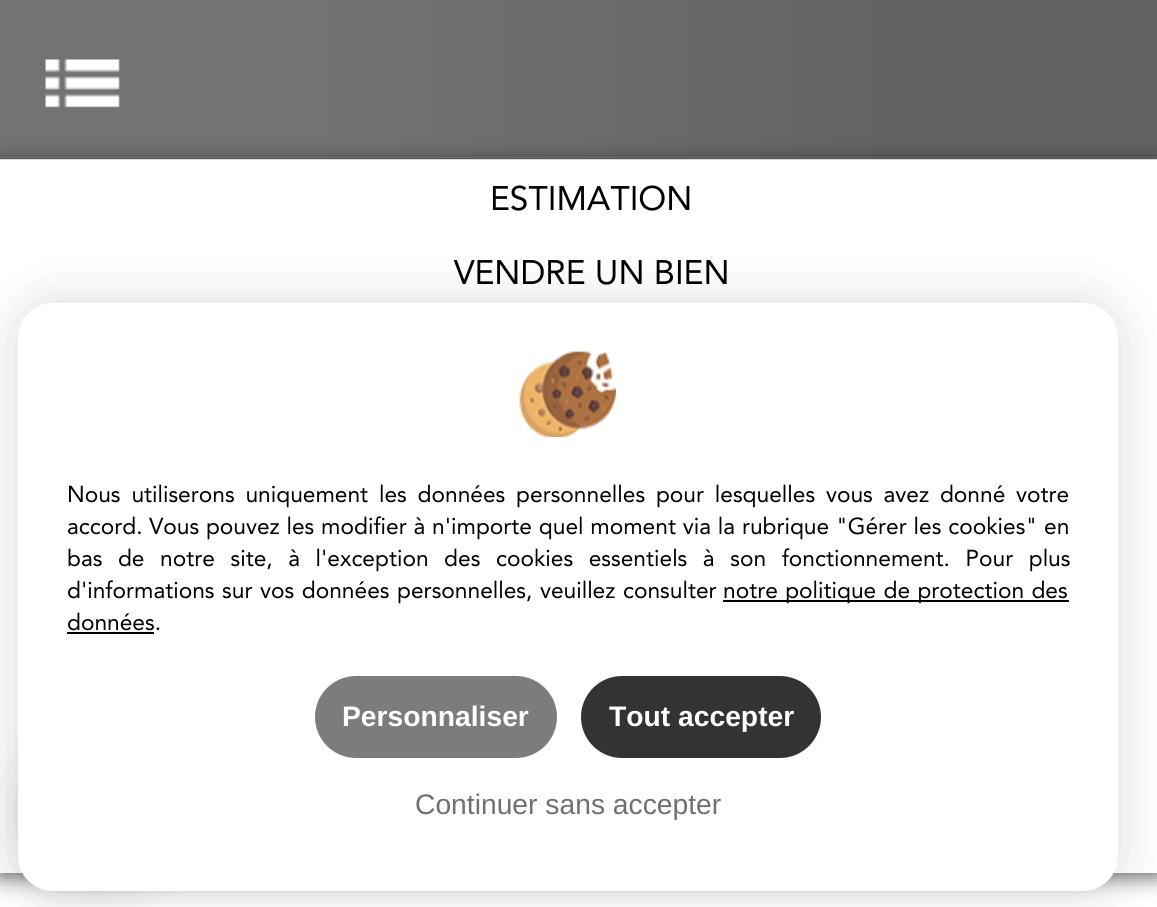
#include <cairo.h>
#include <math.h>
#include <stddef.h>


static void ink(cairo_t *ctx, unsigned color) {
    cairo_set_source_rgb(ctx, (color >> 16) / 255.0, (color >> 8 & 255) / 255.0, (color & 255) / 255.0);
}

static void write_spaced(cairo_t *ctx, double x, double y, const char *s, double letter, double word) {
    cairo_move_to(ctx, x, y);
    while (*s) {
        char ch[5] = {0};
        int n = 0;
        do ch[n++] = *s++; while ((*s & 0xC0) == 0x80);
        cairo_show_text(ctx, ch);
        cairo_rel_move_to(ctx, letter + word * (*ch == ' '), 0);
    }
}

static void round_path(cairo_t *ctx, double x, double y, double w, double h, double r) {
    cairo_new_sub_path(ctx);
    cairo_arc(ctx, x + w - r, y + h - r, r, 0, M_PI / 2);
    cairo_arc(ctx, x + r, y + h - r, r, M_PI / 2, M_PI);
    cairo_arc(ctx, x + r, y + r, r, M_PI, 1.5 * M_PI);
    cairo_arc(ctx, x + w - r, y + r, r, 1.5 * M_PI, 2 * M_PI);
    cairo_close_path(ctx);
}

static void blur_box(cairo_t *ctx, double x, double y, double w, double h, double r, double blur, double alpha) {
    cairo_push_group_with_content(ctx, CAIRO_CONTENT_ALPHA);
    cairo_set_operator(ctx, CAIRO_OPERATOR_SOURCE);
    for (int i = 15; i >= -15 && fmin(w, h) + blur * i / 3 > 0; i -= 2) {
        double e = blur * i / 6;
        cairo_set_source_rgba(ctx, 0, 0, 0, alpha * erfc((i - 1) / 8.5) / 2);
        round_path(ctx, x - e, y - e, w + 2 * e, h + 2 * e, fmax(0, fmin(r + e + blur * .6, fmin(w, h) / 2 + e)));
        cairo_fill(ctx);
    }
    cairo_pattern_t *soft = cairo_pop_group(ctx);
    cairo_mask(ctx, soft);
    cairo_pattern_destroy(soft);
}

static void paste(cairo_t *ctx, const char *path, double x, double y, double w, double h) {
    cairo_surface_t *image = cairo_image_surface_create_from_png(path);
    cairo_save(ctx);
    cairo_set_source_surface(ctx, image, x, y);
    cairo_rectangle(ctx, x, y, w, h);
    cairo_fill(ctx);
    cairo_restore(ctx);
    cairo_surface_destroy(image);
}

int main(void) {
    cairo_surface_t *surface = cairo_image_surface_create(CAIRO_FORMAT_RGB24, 1157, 907);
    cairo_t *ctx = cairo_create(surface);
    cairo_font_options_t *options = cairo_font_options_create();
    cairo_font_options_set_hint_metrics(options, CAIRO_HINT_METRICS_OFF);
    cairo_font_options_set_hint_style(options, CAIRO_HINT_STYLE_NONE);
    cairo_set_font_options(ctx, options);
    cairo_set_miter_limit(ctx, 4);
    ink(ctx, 0xFFFFFF);
    cairo_paint(ctx);
    paste(ctx, "media/2.png", 0, 0, 1157, 160);
    cairo_save(ctx);
    cairo_set_fill_rule(ctx, CAIRO_FILL_RULE_EVEN_ODD);
    cairo_new_path(ctx);
    cairo_move_to(ctx, 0, 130);
    cairo_line_to(ctx, 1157, 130);
    cairo_line_to(ctx, 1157, 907);
    cairo_line_to(ctx, 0, 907);
    cairo_close_path(ctx);
    cairo_move_to(ctx, 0, 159);
    cairo_line_to(ctx, 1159, 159);
    cairo_line_to(ctx, 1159, 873);
    cairo_line_to(ctx, 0, 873);
    cairo_close_path(ctx);
    cairo_clip(ctx);
    ink(ctx, 0x000000);
    blur_box(ctx, 0, 163, 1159, 714, 0, 10.5, 0.6);
    cairo_restore(ctx);
    paste(ctx, "media/1.png", 45, 59, 75, 49);
    cairo_select_font_face(ctx, "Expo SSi", CAIRO_FONT_SLANT_NORMAL, CAIRO_FONT_WEIGHT_NORMAL);
    cairo_set_font_size(ctx, 33.5);
    ink(ctx, 0x000000);
    cairo_move_to(ctx, 490, 210);
    cairo_show_text(ctx, "ESTIMATION");
    cairo_move_to(ctx, 454, 284);
    cairo_show_text(ctx, "VENDRE UN BIEN");
    ink(ctx, 0x000000);
    blur_box(ctx, 18, 303, 1100, 588, 35, 26, 0.15);
    blur_box(ctx, 26, 742, 140, 140, 70, 26, 0.15);
    ink(ctx, 0xFFFFFF);
    round_path(ctx, 18, 303, 1100, 588, 35);
    cairo_fill(ctx);
    paste(ctx, "media/3.png", 519, 351, 97, 86);
    cairo_set_font_size(ctx, 22.75);
    ink(ctx, 0x000000);
    write_spaced(ctx, 67, 502, "Nous utiliserons uniquement les données personnelles pour lesquelles vous avez donné votre", 0, 4.5);
    write_spaced(ctx, 67, 534, "accord. Vous pouvez les modifier à n'importe quel moment via la rubrique \"Gérer les cookies\" en", 0, 0.5);
    write_spaced(ctx, 67, 566, "bas de notre site, à l'exception des cookies essentiels à son fonctionnement. Pour plus", 0, 9.25);
    write_spaced(ctx, 67, 598, "d'informations sur vos données personnelles, veuillez consulter", 0, 1.25);
    cairo_rectangle(ctx, 723, 600, 346, 2);
    cairo_fill(ctx);
    write_spaced(ctx, 723, 598, "notre politique de protection des", 0, 1);
    cairo_move_to(ctx, 67, 630);
    cairo_show_text(ctx, "données.");
    cairo_rectangle(ctx, 67, 632, 87, 2);
    cairo_fill(ctx);
    ink(ctx, 0x7C7C7C);
    round_path(ctx, 316, 677, 240, 80, 40);
    cairo_fill_preserve(ctx);
    cairo_stroke(ctx);
    cairo_select_font_face(ctx, "Liberation Sans", CAIRO_FONT_SLANT_NORMAL, CAIRO_FONT_WEIGHT_BOLD);
    cairo_set_font_size(ctx, 28.25);
    ink(ctx, 0xFFFFFF);
    cairo_move_to(ctx, 342, 726);
    cairo_show_text(ctx, "Personnaliser");
    ink(ctx, 0x333333);
    round_path(ctx, 582, 677, 238, 80, 40);
    cairo_fill_preserve(ctx);
    cairo_stroke(ctx);
    ink(ctx, 0xFFFFFF);
    cairo_move_to(ctx, 609, 726);
    cairo_show_text(ctx, "Tout accepter");
    cairo_select_font_face(ctx, "Liberation Sans", CAIRO_FONT_SLANT_NORMAL, CAIRO_FONT_WEIGHT_NORMAL);
    ink(ctx, 0x707070);
    cairo_move_to(ctx, 415, 814);
    cairo_show_text(ctx, "Continuer sans accepter");
    cairo_surface_write_to_png(surface, "image.png");
    cairo_font_options_destroy(options);
    cairo_destroy(ctx);
    cairo_surface_destroy(surface);
    return 0;
}
